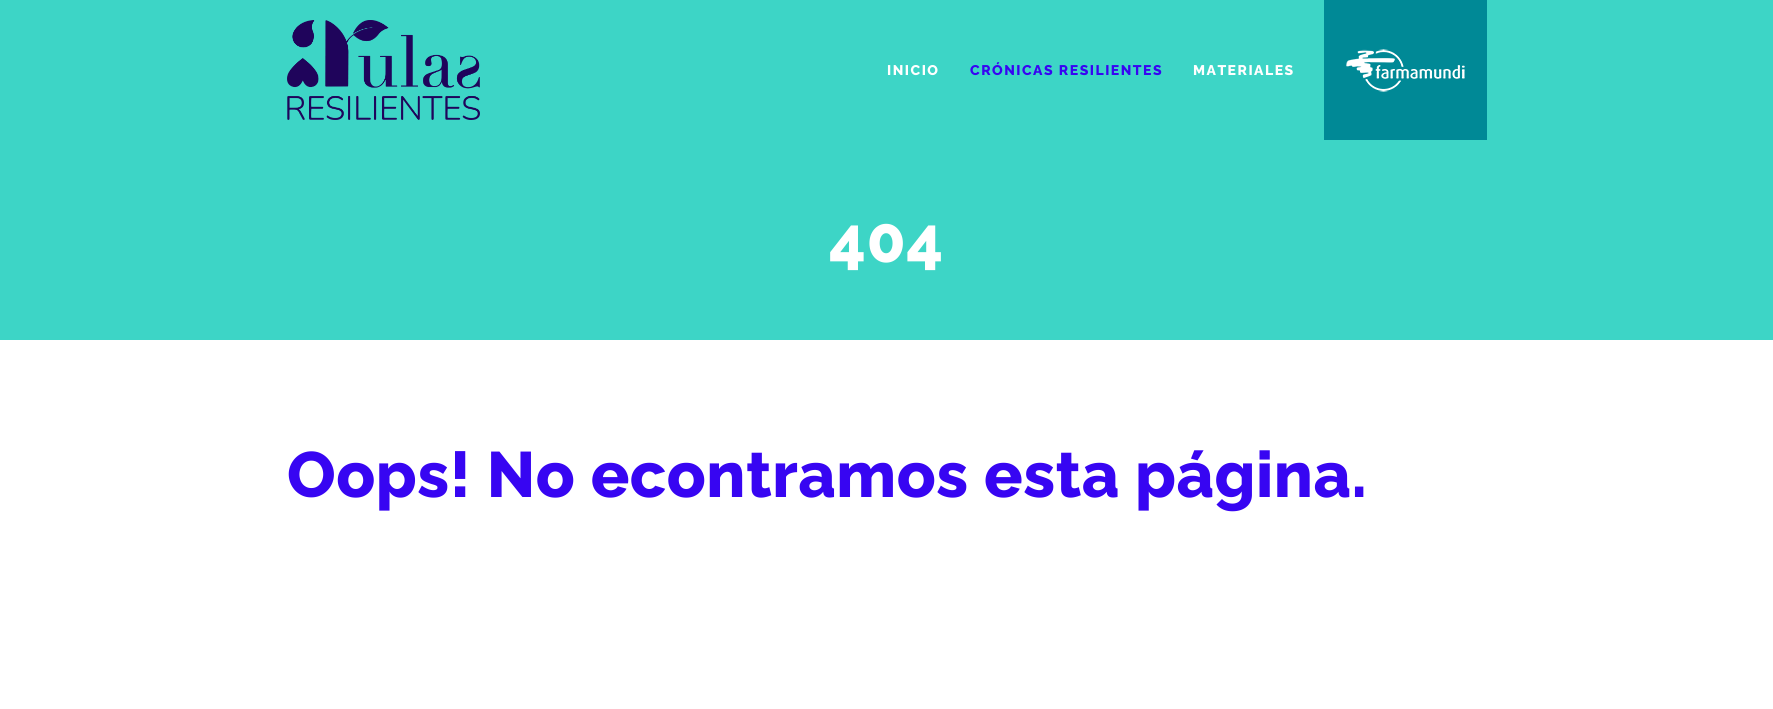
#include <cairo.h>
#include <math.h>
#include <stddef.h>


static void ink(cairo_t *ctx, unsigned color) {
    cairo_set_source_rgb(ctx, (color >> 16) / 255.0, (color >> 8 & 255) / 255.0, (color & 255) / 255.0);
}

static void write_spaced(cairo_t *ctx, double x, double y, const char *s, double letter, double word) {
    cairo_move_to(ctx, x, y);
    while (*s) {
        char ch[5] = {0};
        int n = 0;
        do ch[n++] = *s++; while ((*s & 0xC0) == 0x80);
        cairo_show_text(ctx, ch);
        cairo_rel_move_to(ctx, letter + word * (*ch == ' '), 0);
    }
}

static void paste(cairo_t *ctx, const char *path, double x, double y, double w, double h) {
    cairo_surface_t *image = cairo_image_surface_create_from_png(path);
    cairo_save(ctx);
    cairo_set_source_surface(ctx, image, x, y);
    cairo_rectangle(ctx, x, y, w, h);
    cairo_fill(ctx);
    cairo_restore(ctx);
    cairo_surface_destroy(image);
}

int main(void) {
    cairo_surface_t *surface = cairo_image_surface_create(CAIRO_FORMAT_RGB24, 1773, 709);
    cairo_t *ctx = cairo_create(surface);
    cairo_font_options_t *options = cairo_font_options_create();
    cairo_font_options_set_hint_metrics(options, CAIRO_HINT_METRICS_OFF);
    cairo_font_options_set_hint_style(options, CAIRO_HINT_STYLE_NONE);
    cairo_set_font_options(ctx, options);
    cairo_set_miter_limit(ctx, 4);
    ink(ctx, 0xFFFFFF);
    cairo_paint(ctx);
    ink(ctx, 0x3DD5C6);
    cairo_rectangle(ctx, 0, 0, 1773, 340);
    cairo_fill(ctx);
    paste(ctx, "media/1.png", 287, 20, 193, 100);
    cairo_select_font_face(ctx, "Raleway ExtraBold", CAIRO_FONT_SLANT_NORMAL, CAIRO_FONT_WEIGHT_NORMAL);
    cairo_set_font_size(ctx, 14);
    ink(ctx, 0xFFFFFF);
    write_spaced(ctx, 887, 75, "INICIO", 1.5, 0);
    ink(ctx, 0x3705F2);
    write_spaced(ctx, 970, 75, "CRÓNICAS RESILIENTES", 1.5, 0);
    ink(ctx, 0xFFFFFF);
    write_spaced(ctx, 1193, 75, "MATERIALES", 1.5, 0);
    ink(ctx, 0x008996);
    cairo_rectangle(ctx, 1324, 0, 163, 140);
    cairo_fill(ctx);
    paste(ctx, "media/2.png", 1346, 49, 119, 43);
    cairo_set_font_size(ctx, 64);
    ink(ctx, 0xFFFFFF);
    write_spaced(ctx, 829, 262, "404", 0.5, 0);
    ink(ctx, 0x3705F2);
    write_spaced(ctx, 287, 497, "Oops! No econtramos esta página.", 0.5, 0);
    cairo_surface_write_to_png(surface, "image.png");
    cairo_font_options_destroy(options);
    cairo_destroy(ctx);
    cairo_surface_destroy(surface);
    return 0;
}
